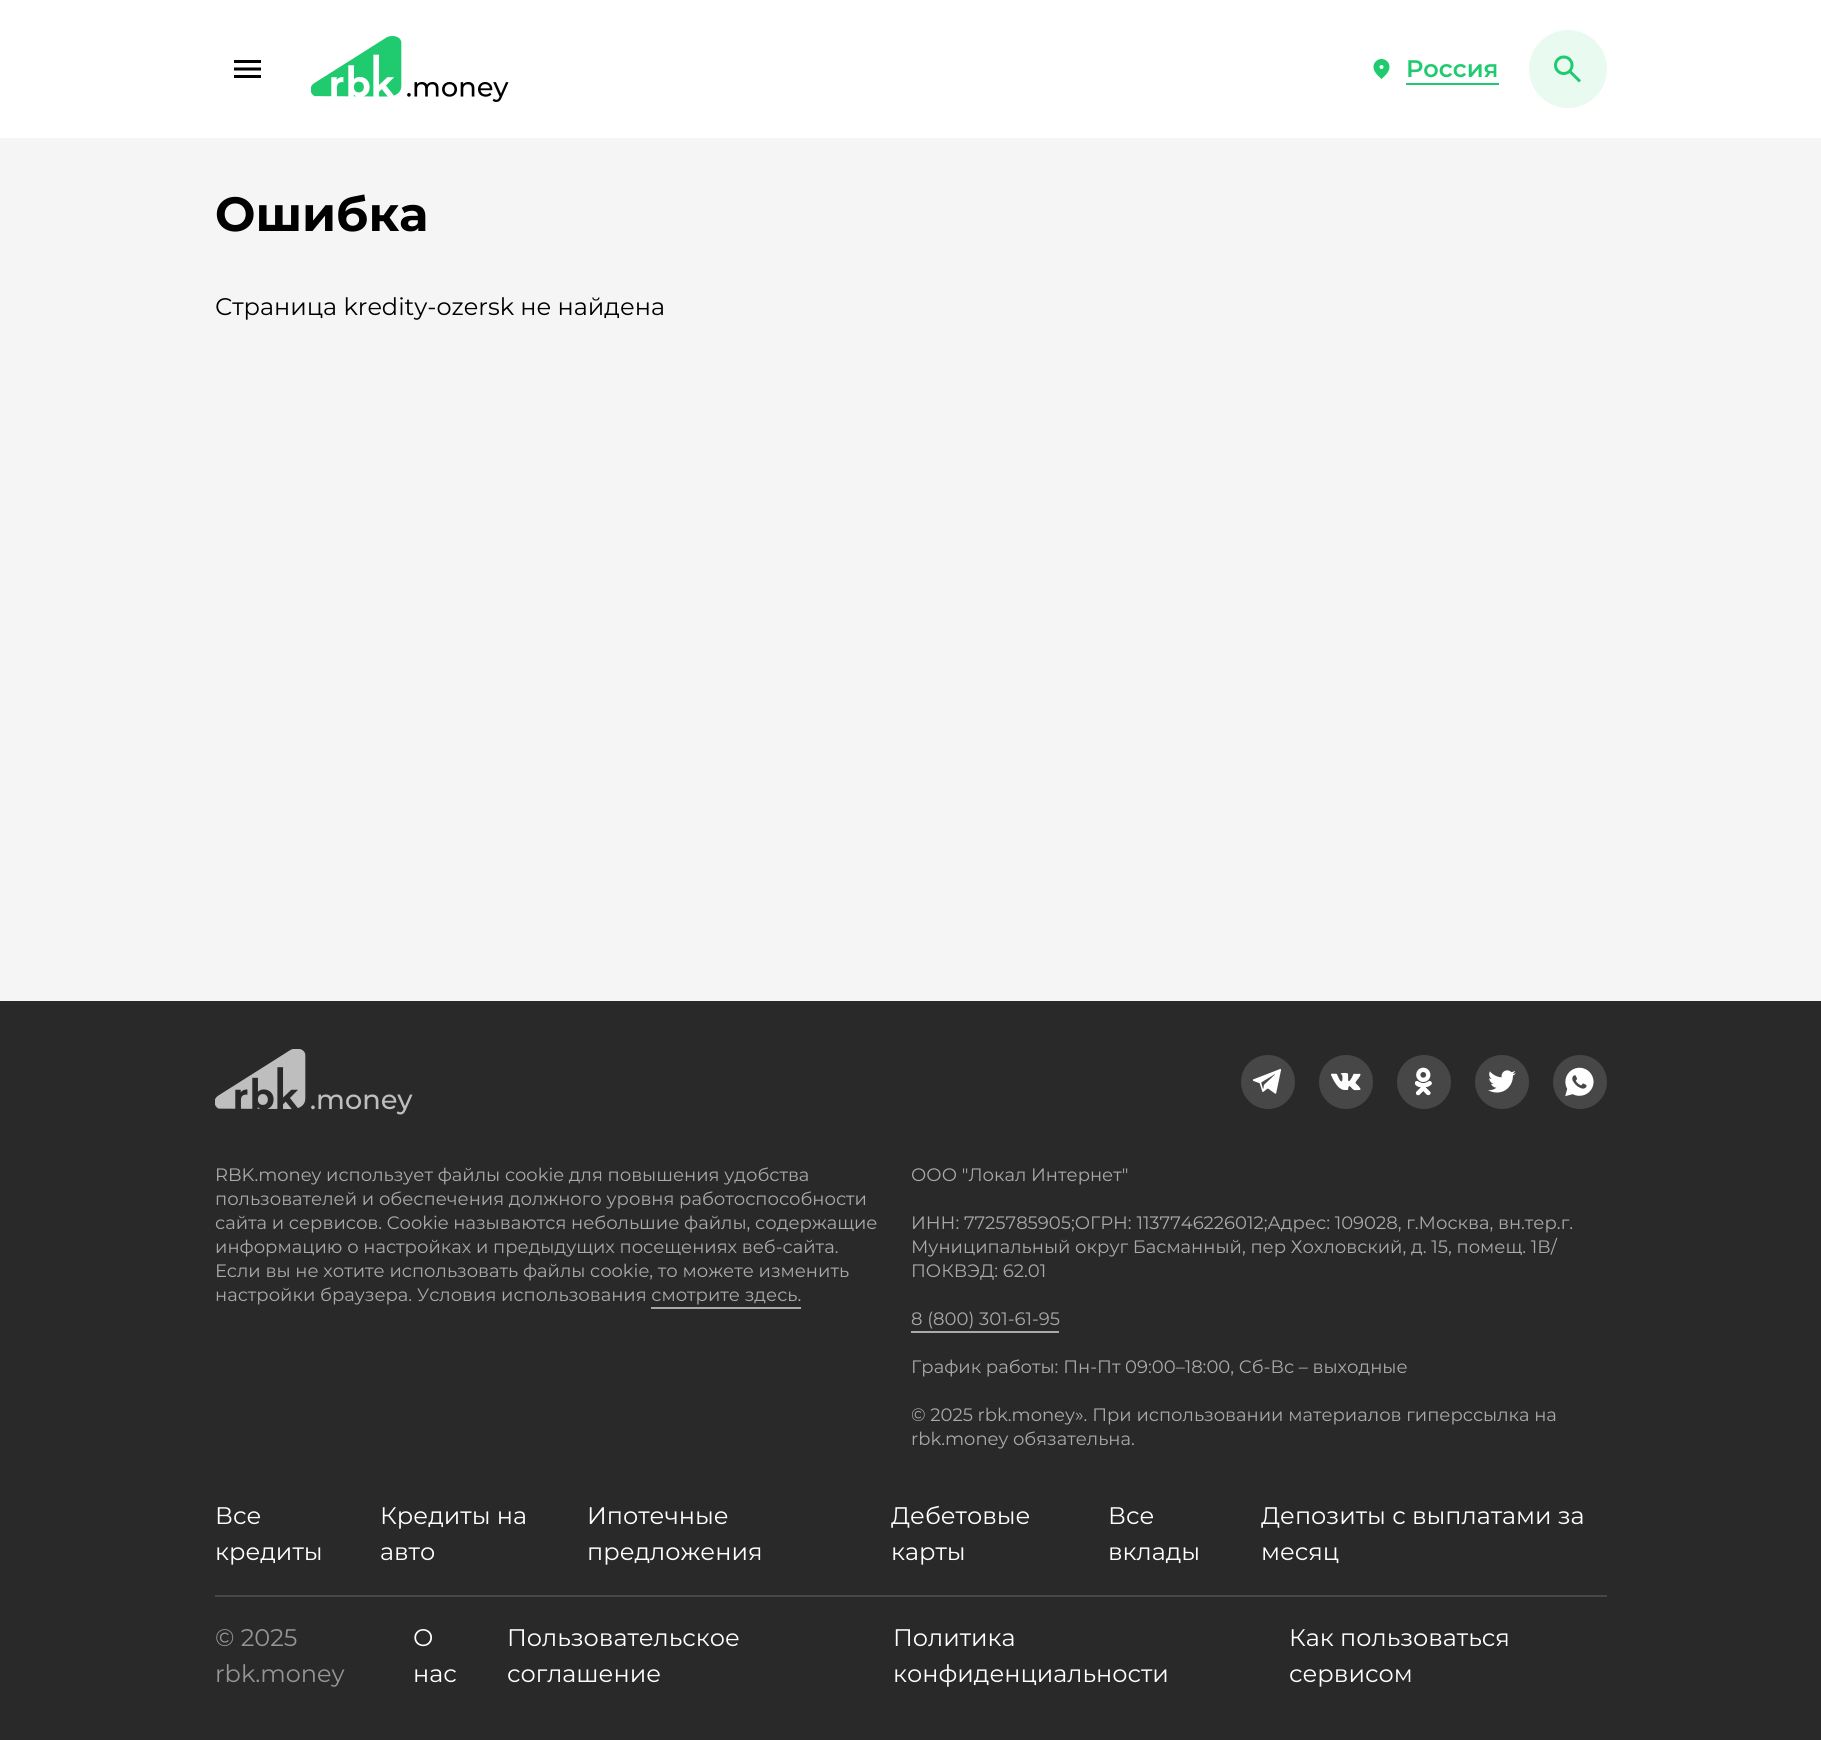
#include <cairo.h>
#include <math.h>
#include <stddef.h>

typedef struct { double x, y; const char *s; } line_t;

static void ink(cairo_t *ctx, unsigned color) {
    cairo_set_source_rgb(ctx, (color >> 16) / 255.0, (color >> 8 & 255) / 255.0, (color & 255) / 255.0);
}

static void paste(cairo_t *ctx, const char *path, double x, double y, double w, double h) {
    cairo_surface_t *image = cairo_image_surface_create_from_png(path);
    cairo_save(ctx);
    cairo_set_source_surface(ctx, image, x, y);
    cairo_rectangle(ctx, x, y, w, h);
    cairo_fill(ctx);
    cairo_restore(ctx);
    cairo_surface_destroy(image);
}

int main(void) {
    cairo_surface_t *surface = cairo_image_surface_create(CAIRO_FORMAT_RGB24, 1821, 1740);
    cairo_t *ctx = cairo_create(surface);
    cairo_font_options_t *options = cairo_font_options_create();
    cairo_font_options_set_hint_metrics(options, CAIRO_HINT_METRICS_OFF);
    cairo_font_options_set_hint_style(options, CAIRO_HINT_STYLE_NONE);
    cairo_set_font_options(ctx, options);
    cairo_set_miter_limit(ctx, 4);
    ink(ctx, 0xF5F5F5);
    cairo_paint(ctx);
    ink(ctx, 0xFFFFFF);
    cairo_rectangle(ctx, 0, 0, 1821, 138);
    cairo_fill(ctx);
    paste(ctx, "media/1.png", 234, 60, 27, 18);
    paste(ctx, "media/2.png", 311, 36, 198, 66);
    paste(ctx, "media/3.png", 1373, 59, 17, 20);
    cairo_select_font_face(ctx, "Montserrat SemiBold", CAIRO_FONT_SLANT_NORMAL, CAIRO_FONT_WEIGHT_NORMAL);
    cairo_set_font_size(ctx, 24);
    ink(ctx, 0x20CB70);
    cairo_move_to(ctx, 1406, 77);
    cairo_show_text(ctx, "Россия");
    cairo_rectangle(ctx, 1406, 83, 93, 2);
    cairo_fill(ctx);
    ink(ctx, 0xE9FAF1);
    cairo_arc(ctx, 1568, 69, 39, 0, 2 * M_PI);
    cairo_fill(ctx);
    paste(ctx, "media/4.png", 1554, 55, 27, 28);
    cairo_select_font_face(ctx, "Montserrat", CAIRO_FONT_SLANT_NORMAL, CAIRO_FONT_WEIGHT_BOLD);
    cairo_set_font_size(ctx, 48);
    ink(ctx, 0x000000);
    cairo_move_to(ctx, 215, 231);
    cairo_show_text(ctx, "Ошибка");
    cairo_select_font_face(ctx, "Montserrat", CAIRO_FONT_SLANT_NORMAL, CAIRO_FONT_WEIGHT_NORMAL);
    cairo_set_font_size(ctx, 24);
    cairo_move_to(ctx, 215, 315);
    cairo_show_text(ctx, "Страница kredity-ozersk не найдена");
    ink(ctx, 0x292929);
    cairo_rectangle(ctx, 0, 1001, 1821, 739);
    cairo_fill(ctx);
    paste(ctx, "media/5.png", 215, 1049, 198, 66);
    ink(ctx, 0x474747);
    cairo_arc(ctx, 1268, 1082, 27, 0, 2 * M_PI);
    cairo_fill(ctx);
    paste(ctx, "media/6.png", 1253, 1069, 29, 25);
    cairo_arc(ctx, 1346, 1082, 27, 0, 2 * M_PI);
    cairo_fill(ctx);
    paste(ctx, "media/7.png", 1331, 1072, 30, 19);
    cairo_arc(ctx, 1424, 1082, 27, 0, 2 * M_PI);
    cairo_fill(ctx);
    paste(ctx, "media/8.png", 1414, 1067, 18, 29);
    cairo_arc(ctx, 1502, 1082, 27, 0, 2 * M_PI);
    cairo_fill(ctx);
    paste(ctx, "media/9.png", 1488, 1070, 28, 23);
    cairo_arc(ctx, 1580, 1082, 27, 0, 2 * M_PI);
    cairo_fill(ctx);
    paste(ctx, "media/10.png", 1565, 1067, 29, 30);
    cairo_set_font_size(ctx, 18);
    ink(ctx, 0xA9A9A9);
    {
        static const line_t items[] = {
            {215, 1181, "RBK.money использует файлы cookie для повышения удобства"},
            {215, 1205, "пользователей и обеспечения должного уровня работоспособности"},
            {215, 1229, "сайта и сервисов. Cookie называются небольшие файлы, содержащие"},
            {215, 1253, "информацию о настройках и предыдущих посещениях веб-сайта."},
            {215, 1277, "Если вы не хотите использовать файлы cookie, то можете изменить"},
            {215, 1301, "настройки браузера. Условия использования смотрите здесь."},
        };
        for (size_t i = 0; i < sizeof items / sizeof *items; i++) {
            cairo_move_to(ctx, items[i].x, items[i].y);
            cairo_show_text(ctx, items[i].s);
        }
    }
    cairo_rectangle(ctx, 651, 1307, 150, 2);
    cairo_fill(ctx);
    {
        static const line_t items[] = {
            {911, 1181, "ООО \"Локал Интернет\""},
            {911, 1229, "ИНН: 7725785905;ОГРН: 1137746226012;Адрес: 109028, г.Москва, вн.тер.г."},
            {911, 1253, "Муниципальный округ Басманный, пер Хохловский, д. 15, помещ. 1В/"},
            {911, 1277, "ПОКВЭД: 62.01"},
            {911, 1325, "8 (800) 301-61-95"},
        };
        for (size_t i = 0; i < sizeof items / sizeof *items; i++) {
            cairo_move_to(ctx, items[i].x, items[i].y);
            cairo_show_text(ctx, items[i].s);
        }
    }
    cairo_rectangle(ctx, 911, 1331, 148, 2);
    cairo_fill(ctx);
    {
        static const line_t items[] = {
            {911, 1373, "График работы: Пн-Пт 09:00–18:00, Сб-Вс – выходные"},
            {911, 1421, "© 2025 rbk.moneу». При использовании материалов гиперссылка на"},
            {911, 1445, "rbk.money обязательна."},
        };
        for (size_t i = 0; i < sizeof items / sizeof *items; i++) {
            cairo_move_to(ctx, items[i].x, items[i].y);
            cairo_show_text(ctx, items[i].s);
        }
    }
    cairo_set_font_size(ctx, 24);
    ink(ctx, 0xFFFFFF);
    {
        static const line_t items[] = {
            {215, 1524, "Все"},
            {215, 1560, "кредиты"},
            {380, 1524, "Кредиты на"},
            {380, 1560, "авто"},
            {587, 1524, "Ипотечные"},
            {587, 1560, "предложения"},
            {891, 1524, "Дебетовые"},
            {891, 1560, "карты"},
            {1108, 1524, "Все"},
            {1108, 1560, "вклады"},
            {1261, 1524, "Депозиты с выплатами за"},
            {1261, 1560, "месяц"},
        };
        for (size_t i = 0; i < sizeof items / sizeof *items; i++) {
            cairo_move_to(ctx, items[i].x, items[i].y);
            cairo_show_text(ctx, items[i].s);
        }
    }
    ink(ctx, 0x474747);
    cairo_rectangle(ctx, 215, 1595, 1392, 2);
    cairo_fill(ctx);
    ink(ctx, 0x949494);
    cairo_move_to(ctx, 215, 1646);
    cairo_show_text(ctx, "© 2025");
    cairo_move_to(ctx, 215, 1682);
    cairo_show_text(ctx, "rbk.money");
    ink(ctx, 0xFFFFFF);
    {
        static const line_t items[] = {
            {413, 1646, "О"},
            {413, 1682, "нас"},
            {507, 1646, "Пользовательское"},
            {507, 1682, "соглашение"},
            {893, 1646, "Политика"},
            {893, 1682, "конфиденциальности"},
            {1289, 1646, "Как пользоваться"},
            {1289, 1682, "сервисом"},
        };
        for (size_t i = 0; i < sizeof items / sizeof *items; i++) {
            cairo_move_to(ctx, items[i].x, items[i].y);
            cairo_show_text(ctx, items[i].s);
        }
    }
    cairo_surface_write_to_png(surface, "image.png");
    cairo_font_options_destroy(options);
    cairo_destroy(ctx);
    cairo_surface_destroy(surface);
    return 0;
}
